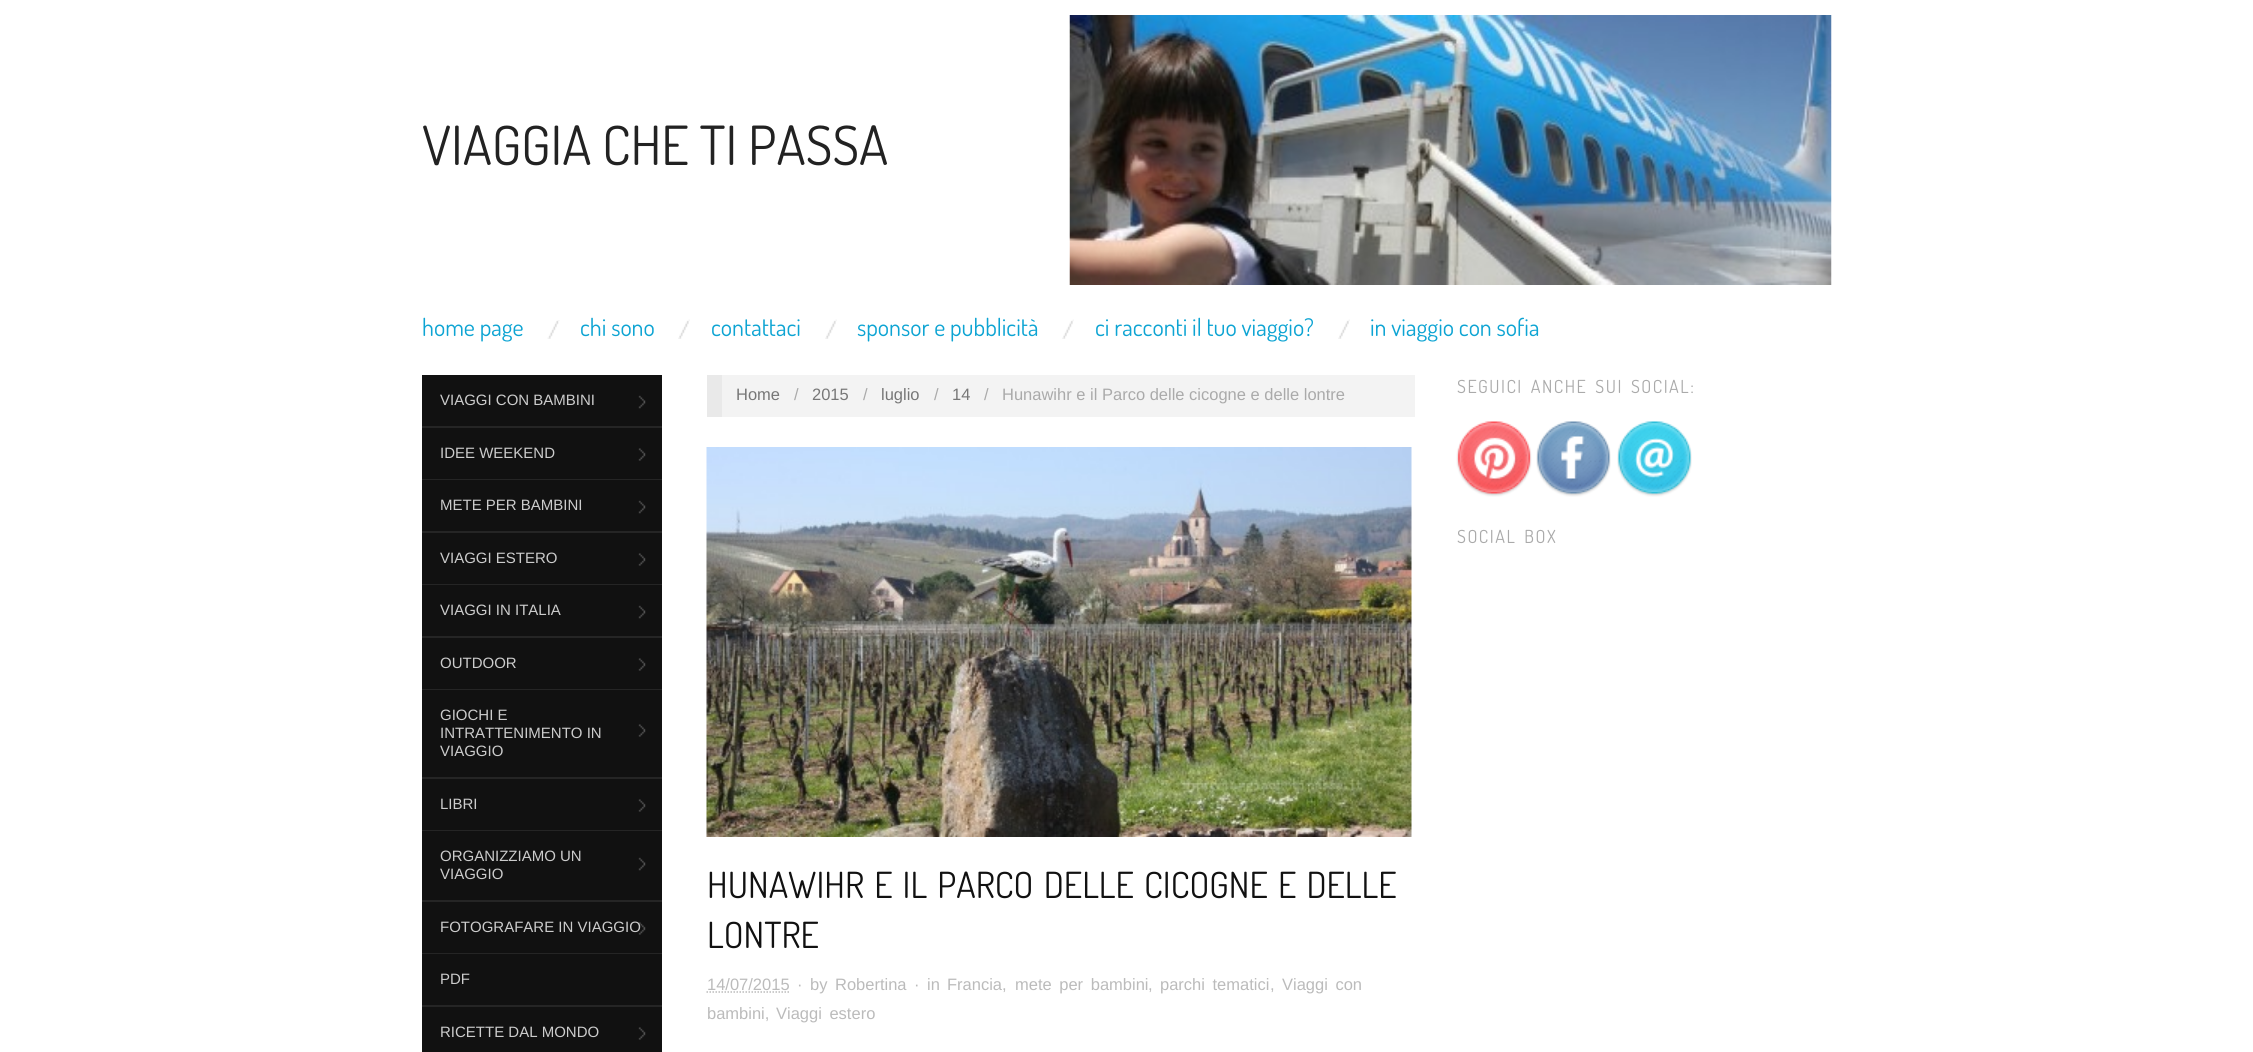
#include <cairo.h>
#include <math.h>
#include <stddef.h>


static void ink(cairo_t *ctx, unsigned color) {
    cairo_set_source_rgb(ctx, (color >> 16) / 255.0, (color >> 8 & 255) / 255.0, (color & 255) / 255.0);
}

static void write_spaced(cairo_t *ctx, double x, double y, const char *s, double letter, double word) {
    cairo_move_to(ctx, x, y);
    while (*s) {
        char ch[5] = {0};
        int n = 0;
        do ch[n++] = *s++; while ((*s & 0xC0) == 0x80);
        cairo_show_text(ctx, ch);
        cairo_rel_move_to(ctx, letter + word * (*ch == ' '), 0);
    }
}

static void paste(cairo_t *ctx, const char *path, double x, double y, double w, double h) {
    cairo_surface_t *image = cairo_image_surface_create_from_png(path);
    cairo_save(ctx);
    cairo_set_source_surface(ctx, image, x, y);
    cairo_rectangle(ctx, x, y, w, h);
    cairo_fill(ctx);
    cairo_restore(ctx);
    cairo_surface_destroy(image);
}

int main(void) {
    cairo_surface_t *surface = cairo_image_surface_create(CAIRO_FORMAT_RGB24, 2253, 1052);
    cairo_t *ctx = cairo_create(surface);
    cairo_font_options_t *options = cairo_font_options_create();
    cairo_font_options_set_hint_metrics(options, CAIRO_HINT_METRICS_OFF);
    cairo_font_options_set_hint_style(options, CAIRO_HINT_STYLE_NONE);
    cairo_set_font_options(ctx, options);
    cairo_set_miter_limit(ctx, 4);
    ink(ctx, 0xFFFFFF);
    cairo_paint(ctx);
    cairo_select_font_face(ctx, "Dosis", CAIRO_FONT_SLANT_NORMAL, CAIRO_FONT_WEIGHT_NORMAL);
    cairo_set_font_size(ctx, 54);
    ink(ctx, 0x222222);
    cairo_move_to(ctx, 422, 165);
    cairo_show_text(ctx, "VIAGGIA CHE TI PASSA");
    paste(ctx, "media/1.png", 1069, 15, 763, 270);
    cairo_set_font_size(ctx, 24);
    ink(ctx, 0x0DA4D3);
    cairo_move_to(ctx, 422, 336);
    cairo_show_text(ctx, "home page");
    paste(ctx, "media/2.png", 547, 320, 13, 19);
    cairo_move_to(ctx, 580, 336);
    cairo_show_text(ctx, "chi sono");
    paste(ctx, "media/3.png", 678, 319, 12, 20);
    cairo_move_to(ctx, 711, 336);
    cairo_show_text(ctx, "contattaci");
    paste(ctx, "media/3.png", 825, 319, 12, 20);
    cairo_move_to(ctx, 857, 336);
    cairo_show_text(ctx, "sponsor e pubblicità");
    paste(ctx, "media/4.png", 1062, 319, 12, 20);
    cairo_move_to(ctx, 1095, 336);
    cairo_show_text(ctx, "ci racconti il tuo viaggio?");
    paste(ctx, "media/4.png", 1338, 319, 12, 20);
    cairo_move_to(ctx, 1370, 336);
    cairo_show_text(ctx, "in viaggio con sofia");
    ink(ctx, 0x111111);
    cairo_rectangle(ctx, 422, 375, 240, 677);
    cairo_fill(ctx);
    ink(ctx, 0x252525);
    cairo_rectangle(ctx, 422, 426, 240, 2);
    cairo_fill(ctx);
    cairo_select_font_face(ctx, "Liberation Sans", CAIRO_FONT_SLANT_NORMAL, CAIRO_FONT_WEIGHT_NORMAL);
    cairo_set_font_size(ctx, 15);
    ink(ctx, 0xCCCCCC);
    cairo_move_to(ctx, 440, 405);
    cairo_show_text(ctx, "VIAGGI CON BAMBINI");
    paste(ctx, "media/5.png", 638, 395, 8, 14);
    ink(ctx, 0x252525);
    cairo_rectangle(ctx, 422, 479, 240, 1);
    cairo_fill(ctx);
    ink(ctx, 0xCCCCCC);
    cairo_move_to(ctx, 440, 458);
    cairo_show_text(ctx, "IDEE WEEKEND");
    paste(ctx, "media/6.png", 638, 448, 8, 13);
    ink(ctx, 0x252525);
    cairo_rectangle(ctx, 422, 531, 240, 2);
    cairo_fill(ctx);
    ink(ctx, 0xCCCCCC);
    cairo_move_to(ctx, 440, 510);
    cairo_show_text(ctx, "METE PER BAMBINI");
    paste(ctx, "media/5.png", 638, 500, 8, 14);
    ink(ctx, 0x252525);
    cairo_rectangle(ctx, 422, 584, 240, 1);
    cairo_fill(ctx);
    ink(ctx, 0xCCCCCC);
    cairo_move_to(ctx, 440, 563);
    cairo_show_text(ctx, "VIAGGI ESTERO");
    paste(ctx, "media/6.png", 638, 553, 8, 13);
    ink(ctx, 0x252525);
    cairo_rectangle(ctx, 422, 636, 240, 2);
    cairo_fill(ctx);
    ink(ctx, 0xCCCCCC);
    cairo_move_to(ctx, 440, 615);
    cairo_show_text(ctx, "VIAGGI IN ITALIA");
    paste(ctx, "media/5.png", 638, 605, 8, 14);
    ink(ctx, 0x252525);
    cairo_rectangle(ctx, 422, 689, 240, 1);
    cairo_fill(ctx);
    ink(ctx, 0xCCCCCC);
    cairo_move_to(ctx, 440, 668);
    cairo_show_text(ctx, "OUTDOOR");
    paste(ctx, "media/6.png", 638, 658, 8, 13);
    ink(ctx, 0x252525);
    cairo_rectangle(ctx, 422, 777, 240, 2);
    cairo_fill(ctx);
    ink(ctx, 0xCCCCCC);
    cairo_move_to(ctx, 440, 720);
    cairo_show_text(ctx, "GIOCHI E");
    cairo_move_to(ctx, 440, 738);
    cairo_show_text(ctx, "INTRATTENIMENTO IN");
    paste(ctx, "media/6.png", 638, 724, 8, 13);
    cairo_move_to(ctx, 440, 756);
    cairo_show_text(ctx, "VIAGGIO");
    ink(ctx, 0x252525);
    cairo_rectangle(ctx, 422, 830, 240, 1);
    cairo_fill(ctx);
    ink(ctx, 0xCCCCCC);
    cairo_move_to(ctx, 440, 809);
    cairo_show_text(ctx, "LIBRI");
    paste(ctx, "media/6.png", 638, 799, 8, 13);
    ink(ctx, 0x252525);
    cairo_rectangle(ctx, 422, 900, 240, 2);
    cairo_fill(ctx);
    ink(ctx, 0xCCCCCC);
    cairo_move_to(ctx, 440, 861);
    cairo_show_text(ctx, "ORGANIZZIAMO UN");
    paste(ctx, "media/5.png", 638, 857, 8, 14);
    cairo_move_to(ctx, 440, 879);
    cairo_show_text(ctx, "VIAGGIO");
    ink(ctx, 0x252525);
    cairo_rectangle(ctx, 422, 953, 240, 1);
    cairo_fill(ctx);
    ink(ctx, 0xCCCCCC);
    cairo_move_to(ctx, 440, 932);
    cairo_show_text(ctx, "FOTOGRAFARE IN VIAGGIO");
    paste(ctx, "media/7.png", 638, 922, 8, 13);
    ink(ctx, 0x252525);
    cairo_rectangle(ctx, 422, 1005, 240, 2);
    cairo_fill(ctx);
    ink(ctx, 0xCCCCCC);
    cairo_move_to(ctx, 440, 984);
    cairo_show_text(ctx, "PDF");
    cairo_move_to(ctx, 440, 1037);
    cairo_show_text(ctx, "RICETTE DAL MONDO");
    paste(ctx, "media/6.png", 638, 1027, 8, 13);
    ink(ctx, 0xF3F3F3);
    cairo_rectangle(ctx, 722, 375, 693, 42);
    cairo_fill(ctx);
    ink(ctx, 0xE9E9E9);
    cairo_rectangle(ctx, 707, 375, 15, 42);
    cairo_fill(ctx);
    cairo_set_font_size(ctx, 16.5);
    ink(ctx, 0x777777);
    cairo_move_to(ctx, 736, 400);
    cairo_show_text(ctx, "Home");
    ink(ctx, 0xAAAAAA);
    cairo_move_to(ctx, 794, 400);
    cairo_show_text(ctx, "/");
    ink(ctx, 0x777777);
    cairo_move_to(ctx, 812, 400);
    cairo_show_text(ctx, "2015");
    ink(ctx, 0xAAAAAA);
    cairo_move_to(ctx, 863, 400);
    cairo_show_text(ctx, "/");
    ink(ctx, 0x777777);
    cairo_move_to(ctx, 881, 400);
    cairo_show_text(ctx, "luglio");
    ink(ctx, 0xAAAAAA);
    cairo_move_to(ctx, 934, 400);
    cairo_show_text(ctx, "/");
    ink(ctx, 0x777777);
    cairo_move_to(ctx, 952, 400);
    cairo_show_text(ctx, "14");
    ink(ctx, 0xAAAAAA);
    cairo_move_to(ctx, 984, 400);
    cairo_show_text(ctx, "/");
    cairo_move_to(ctx, 1002, 400);
    cairo_show_text(ctx, "Hunawihr e il Parco delle cicogne e delle lontre");
    paste(ctx, "media/8.png", 706, 447, 706, 390);
    cairo_select_font_face(ctx, "Dosis", CAIRO_FONT_SLANT_NORMAL, CAIRO_FONT_WEIGHT_NORMAL);
    cairo_set_font_size(ctx, 36);
    ink(ctx, 0x111111);
    write_spaced(ctx, 707, 898, "HUNAWIHR E IL PARCO DELLE CICOGNE E DELLE", 0, 3);
    cairo_move_to(ctx, 707, 948);
    cairo_show_text(ctx, "LONTRE");
    cairo_select_font_face(ctx, "Liberation Sans", CAIRO_FONT_SLANT_NORMAL, CAIRO_FONT_WEIGHT_NORMAL);
    cairo_set_font_size(ctx, 16.5);
    ink(ctx, 0xBBBBBB);
    cairo_move_to(ctx, 707, 990);
    cairo_show_text(ctx, "14/07/2015");
    cairo_new_path(ctx);
    cairo_move_to(ctx, 706.5, 992);
    cairo_line_to(ctx, 789, 992);
    cairo_set_line_width(ctx, 1.5);
    cairo_set_dash(ctx, (double[]){1.5, 1.5}, 2, 0);
    cairo_stroke(ctx);
    write_spaced(ctx, 797, 990, "· by", 0, 3);
    cairo_move_to(ctx, 835, 990);
    cairo_show_text(ctx, "Robertina");
    write_spaced(ctx, 914, 990, "· in", 0, 3);
    cairo_move_to(ctx, 947, 990);
    cairo_show_text(ctx, "Francia,");
    write_spaced(ctx, 1015, 990, "mete per bambini", 0, 3);
    cairo_move_to(ctx, 1148, 990);
    cairo_show_text(ctx, ",");
    write_spaced(ctx, 1160, 990, "parchi tematici", 0, 3);
    cairo_move_to(ctx, 1270, 990);
    cairo_show_text(ctx, ",");
    write_spaced(ctx, 1282, 990, "Viaggi con", 0, 3);
    cairo_move_to(ctx, 707, 1019);
    cairo_show_text(ctx, "bambini,");
    write_spaced(ctx, 776, 1019, "Viaggi estero", 0, 3);
    cairo_select_font_face(ctx, "Dosis", CAIRO_FONT_SLANT_NORMAL, CAIRO_FONT_WEIGHT_NORMAL);
    cairo_set_font_size(ctx, 18);
    ink(ctx, 0xAAAAAA);
    write_spaced(ctx, 1457, 393, "SEGUICI ANCHE SUI SOCIAL:", 1.5, 3);
    paste(ctx, "media/9.png", 1456, 421, 76, 76);
    paste(ctx, "media/10.png", 1536, 421, 75, 76);
    paste(ctx, "media/11.png", 1617, 421, 75, 76);
    write_spaced(ctx, 1457, 543, "SOCIAL BOX", 1.5, 3);
    cairo_surface_write_to_png(surface, "image.png");
    cairo_font_options_destroy(options);
    cairo_destroy(ctx);
    cairo_surface_destroy(surface);
    return 0;
}
